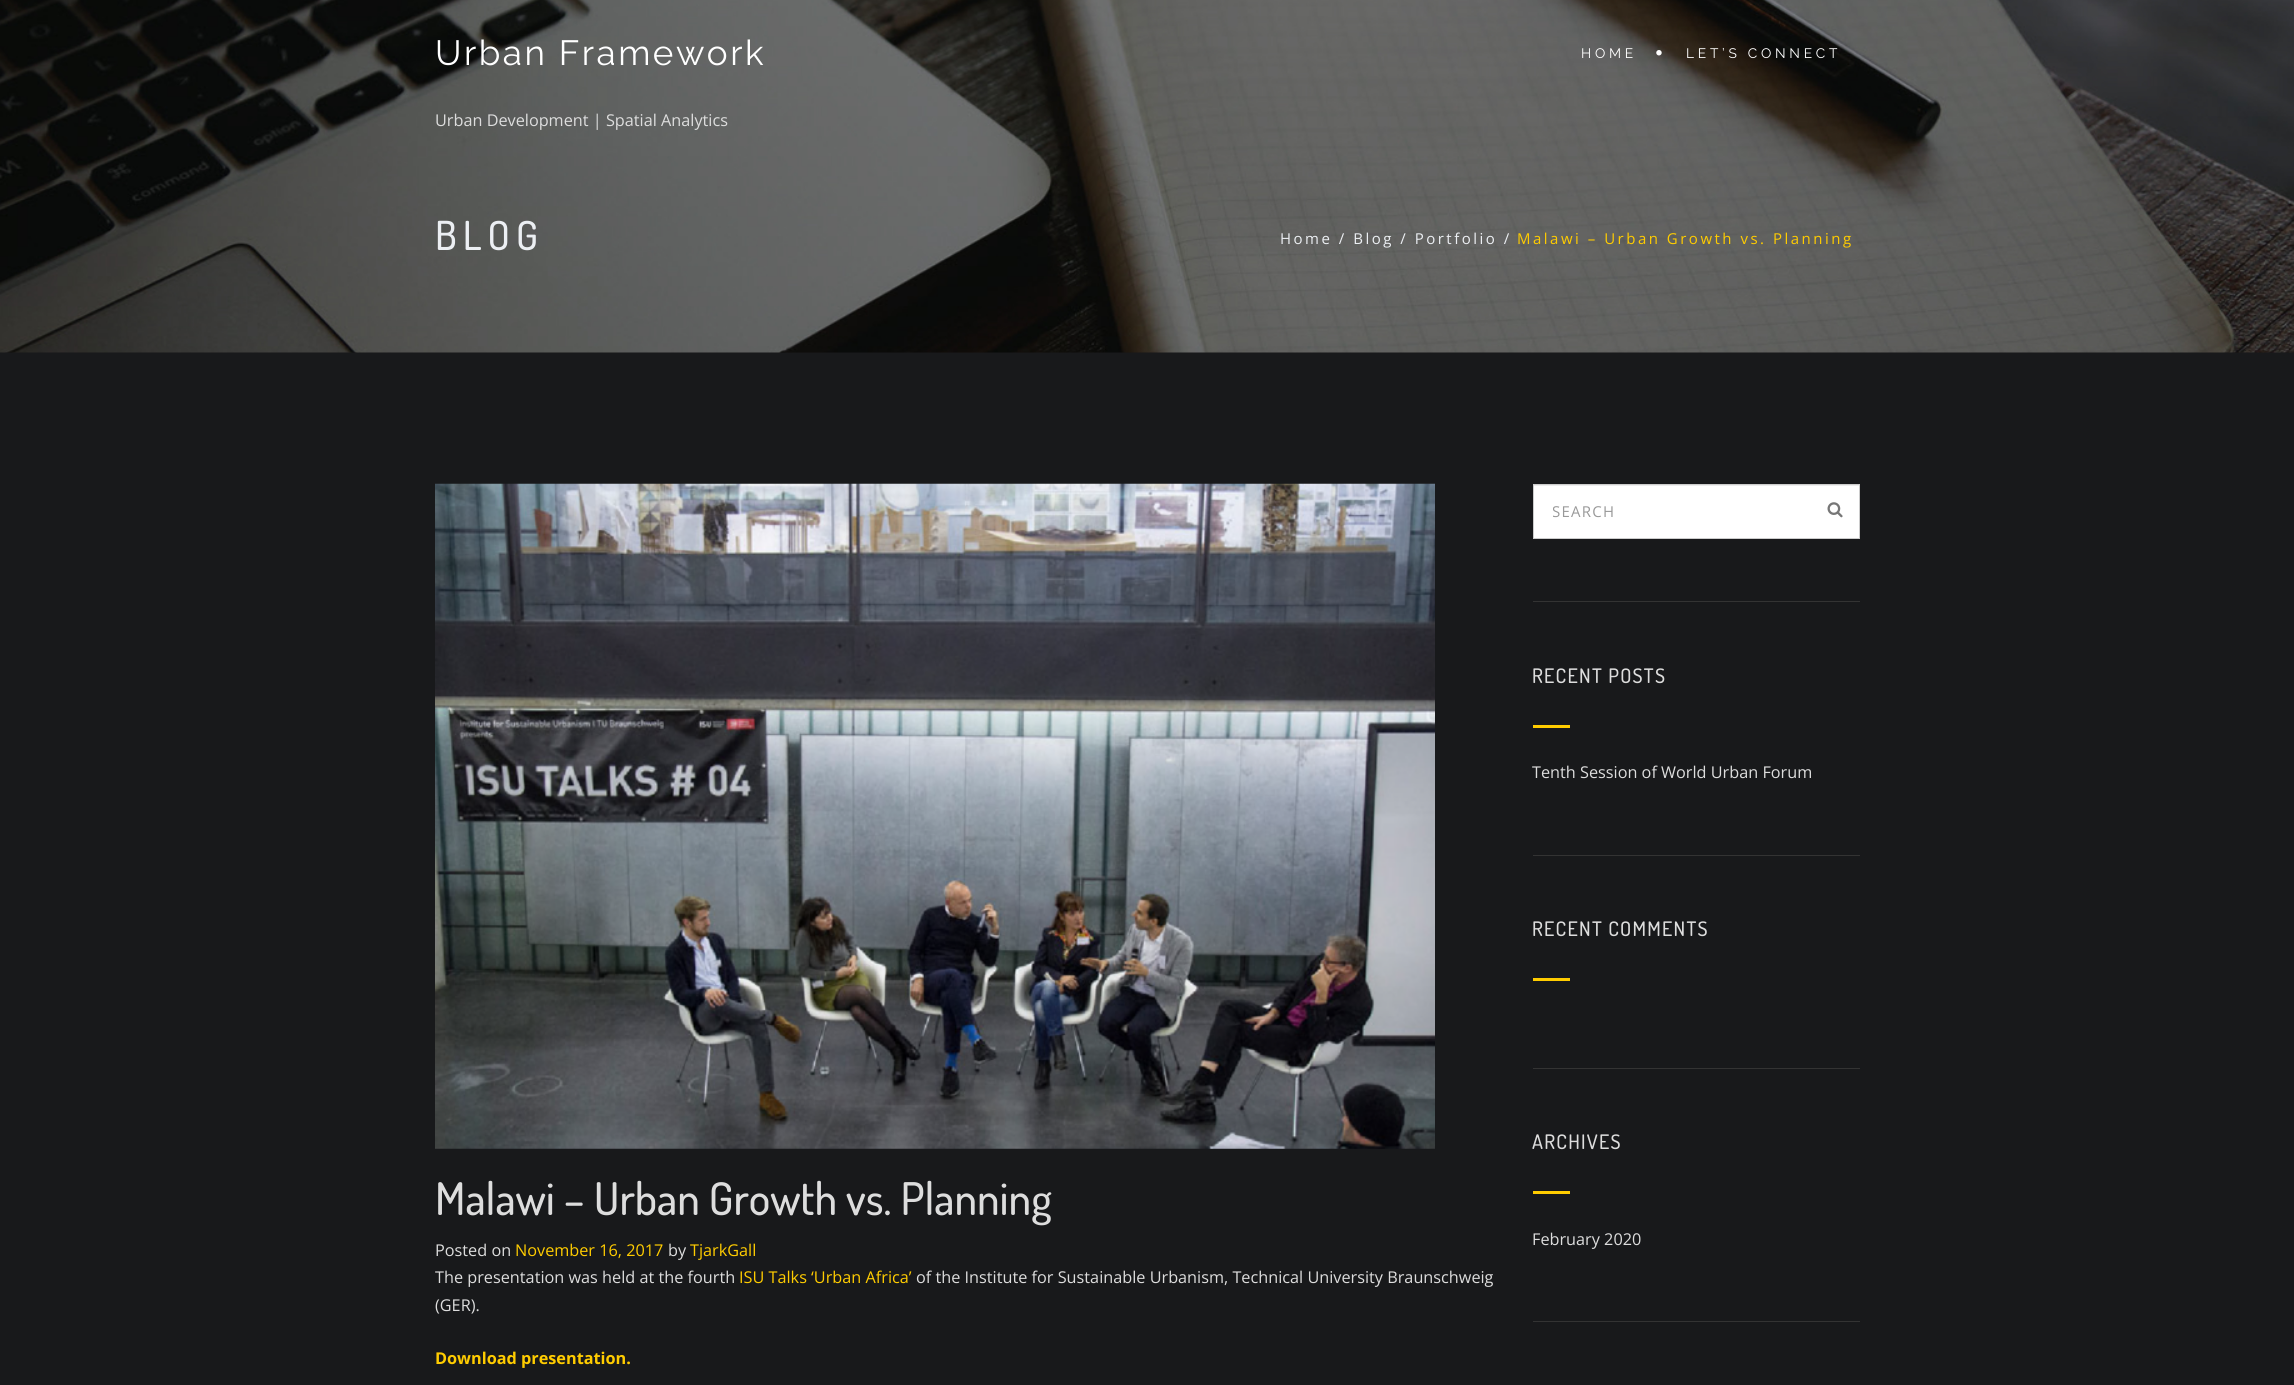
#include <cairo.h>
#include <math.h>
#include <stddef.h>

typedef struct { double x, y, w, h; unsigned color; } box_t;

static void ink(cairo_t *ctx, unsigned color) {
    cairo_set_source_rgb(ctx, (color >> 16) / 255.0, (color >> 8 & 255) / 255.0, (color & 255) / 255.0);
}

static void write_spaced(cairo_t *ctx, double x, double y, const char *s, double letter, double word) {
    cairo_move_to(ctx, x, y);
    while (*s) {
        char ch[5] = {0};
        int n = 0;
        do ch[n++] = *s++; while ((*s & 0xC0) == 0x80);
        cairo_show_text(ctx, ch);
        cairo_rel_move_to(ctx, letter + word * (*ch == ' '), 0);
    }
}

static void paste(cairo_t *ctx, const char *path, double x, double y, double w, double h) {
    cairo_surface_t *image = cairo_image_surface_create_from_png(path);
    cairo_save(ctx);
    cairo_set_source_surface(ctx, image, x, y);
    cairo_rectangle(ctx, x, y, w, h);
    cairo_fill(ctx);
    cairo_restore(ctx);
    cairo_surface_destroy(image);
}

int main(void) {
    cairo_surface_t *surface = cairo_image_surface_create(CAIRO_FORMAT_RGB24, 2294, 1385);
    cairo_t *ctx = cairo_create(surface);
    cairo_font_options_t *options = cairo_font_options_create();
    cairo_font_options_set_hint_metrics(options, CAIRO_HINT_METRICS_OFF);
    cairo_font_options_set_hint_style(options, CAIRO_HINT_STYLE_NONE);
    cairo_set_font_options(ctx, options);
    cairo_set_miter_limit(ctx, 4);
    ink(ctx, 0x18191B);
    cairo_paint(ctx);
    paste(ctx, "media/2.png", 0, 0, 2294, 353);
    cairo_select_font_face(ctx, "Raleway", CAIRO_FONT_SLANT_NORMAL, CAIRO_FONT_WEIGHT_NORMAL);
    cairo_set_font_size(ctx, 35);
    ink(ctx, 0xFFFFFF);
    write_spaced(ctx, 435, 65, "Urban Framework", 2.5, 0);
    cairo_select_font_face(ctx, "Open Sans", CAIRO_FONT_SLANT_NORMAL, CAIRO_FONT_WEIGHT_NORMAL);
    cairo_set_font_size(ctx, 16.25);
    ink(ctx, 0xDDDDDD);
    cairo_move_to(ctx, 435, 126);
    cairo_show_text(ctx, "Urban Development | Spatial Analytics");
    cairo_select_font_face(ctx, "Raleway", CAIRO_FONT_SLANT_NORMAL, CAIRO_FONT_WEIGHT_NORMAL);
    cairo_set_font_size(ctx, 13.75);
    ink(ctx, 0xFFFFFF);
    write_spaced(ctx, 1581, 58, "HOME", 3.75, 0);
    paste(ctx, "media/1.png", 1656, 50, 6, 6);
    write_spaced(ctx, 1686, 58, "LET’S CONNECT", 3.75, 0);
    cairo_select_font_face(ctx, "Dosis Medium", CAIRO_FONT_SLANT_NORMAL, CAIRO_FONT_WEIGHT_NORMAL);
    cairo_set_font_size(ctx, 40);
    ink(ctx, 0xECEFF3);
    write_spaced(ctx, 435, 250, "BLOG", 6, 0);
    cairo_select_font_face(ctx, "Open Sans", CAIRO_FONT_SLANT_NORMAL, CAIRO_FONT_WEIGHT_NORMAL);
    cairo_set_font_size(ctx, 15);
    write_spaced(ctx, 1280, 244, "Home / Blog / Portfolio /", 2.5, 0);
    ink(ctx, 0xFFCC00);
    write_spaced(ctx, 1517, 244, "Malawi – Urban Growth vs. Planning", 2.5, 0);
    {
        static const box_t items[] = {
            {1533, 601, 327, 1, 0x333333},
            {1534, 486, 325, 52, 0xFFFFFF},
            {1534, 485, 325, 1, 0xECECEC},
        };
        for (size_t i = 0; i < sizeof items / sizeof *items; i++) {
            ink(ctx, items[i].color);
            cairo_rectangle(ctx, items[i].x, items[i].y, items[i].w, items[i].h);
            cairo_fill(ctx);
        }
    }
    cairo_rectangle(ctx, 1533.5, 484.5, 326, 54);
    ink(ctx, 0xCCCCCC);
    cairo_set_line_width(ctx, 1);
    cairo_stroke(ctx);
    cairo_save(ctx);
    cairo_rectangle(ctx, 1553, 501, 287, 22);
    cairo_clip(ctx);
    ink(ctx, 0x999999);
    write_spaced(ctx, 1552, 517, "SEARCH", 1.25, 0);
    cairo_restore(ctx);
    paste(ctx, "media/3.png", 1827, 502, 16, 16);
    ink(ctx, 0x333333);
    cairo_rectangle(ctx, 1533, 855, 327, 1);
    cairo_fill(ctx);
    cairo_select_font_face(ctx, "Dosis Medium", CAIRO_FONT_SLANT_NORMAL, CAIRO_FONT_WEIGHT_NORMAL);
    cairo_set_font_size(ctx, 20);
    ink(ctx, 0xDDDDDD);
    write_spaced(ctx, 1532, 683, "RECENT POSTS", 1.25, 0);
    ink(ctx, 0xFFCC00);
    cairo_rectangle(ctx, 1533, 725, 37, 3);
    cairo_fill(ctx);
    cairo_select_font_face(ctx, "Open Sans", CAIRO_FONT_SLANT_NORMAL, CAIRO_FONT_WEIGHT_NORMAL);
    cairo_set_font_size(ctx, 16.25);
    ink(ctx, 0xDDDDDD);
    cairo_move_to(ctx, 1532, 778);
    cairo_show_text(ctx, "Tenth Session of World Urban Forum");
    ink(ctx, 0x333333);
    cairo_rectangle(ctx, 1533, 1068, 327, 1);
    cairo_fill(ctx);
    cairo_select_font_face(ctx, "Dosis Medium", CAIRO_FONT_SLANT_NORMAL, CAIRO_FONT_WEIGHT_NORMAL);
    cairo_set_font_size(ctx, 20);
    ink(ctx, 0xDDDDDD);
    write_spaced(ctx, 1532, 936, "RECENT COMMENTS", 1.25, 0);
    ink(ctx, 0xFFCC00);
    cairo_rectangle(ctx, 1533, 978, 37, 3);
    cairo_fill(ctx);
    ink(ctx, 0x333333);
    cairo_rectangle(ctx, 1533, 1321, 327, 1);
    cairo_fill(ctx);
    ink(ctx, 0xDDDDDD);
    write_spaced(ctx, 1532, 1149, "ARCHIVES", 1.25, 0);
    ink(ctx, 0xFFCC00);
    cairo_rectangle(ctx, 1533, 1191, 37, 3);
    cairo_fill(ctx);
    cairo_select_font_face(ctx, "Open Sans", CAIRO_FONT_SLANT_NORMAL, CAIRO_FONT_WEIGHT_NORMAL);
    cairo_set_font_size(ctx, 16.25);
    ink(ctx, 0xDDDDDD);
    cairo_move_to(ctx, 1532, 1245);
    cairo_show_text(ctx, "February 2020");
    paste(ctx, "media/4.png", 435, 483, 1000, 666);
    cairo_select_font_face(ctx, "Dosis Medium", CAIRO_FONT_SLANT_NORMAL, CAIRO_FONT_WEIGHT_NORMAL);
    cairo_set_font_size(ctx, 45);
    cairo_move_to(ctx, 435, 1215);
    cairo_show_text(ctx, "Malawi – Urban Growth vs. Planning");
    cairo_select_font_face(ctx, "Open Sans", CAIRO_FONT_SLANT_NORMAL, CAIRO_FONT_WEIGHT_NORMAL);
    cairo_set_font_size(ctx, 16.25);
    cairo_move_to(ctx, 435, 1256);
    cairo_show_text(ctx, "Posted on");
    ink(ctx, 0xFFCC00);
    cairo_move_to(ctx, 515, 1256);
    cairo_show_text(ctx, "November 16, 2017");
    ink(ctx, 0xDDDDDD);
    cairo_move_to(ctx, 668, 1256);
    cairo_show_text(ctx, "by");
    ink(ctx, 0xFFCC00);
    cairo_move_to(ctx, 690, 1256);
    cairo_show_text(ctx, "TjarkGall");
    ink(ctx, 0xDDDDDD);
    cairo_move_to(ctx, 435, 1283);
    cairo_show_text(ctx, "The presentation was held at the fourth");
    ink(ctx, 0xFFCC00);
    cairo_move_to(ctx, 739, 1283);
    cairo_show_text(ctx, "ISU Talks ‘Urban Africa’");
    ink(ctx, 0xDDDDDD);
    cairo_move_to(ctx, 916, 1283);
    cairo_show_text(ctx, "of the Institute for Sustainable Urbanism, Technical University Braunschweig");
    cairo_move_to(ctx, 435, 1311);
    cairo_show_text(ctx, "(GER).");
    cairo_select_font_face(ctx, "Open Sans", CAIRO_FONT_SLANT_NORMAL, CAIRO_FONT_WEIGHT_BOLD);
    ink(ctx, 0xFFCC00);
    cairo_move_to(ctx, 435, 1364);
    cairo_show_text(ctx, "Download presentation.");
    cairo_surface_write_to_png(surface, "image.png");
    cairo_font_options_destroy(options);
    cairo_destroy(ctx);
    cairo_surface_destroy(surface);
    return 0;
}
